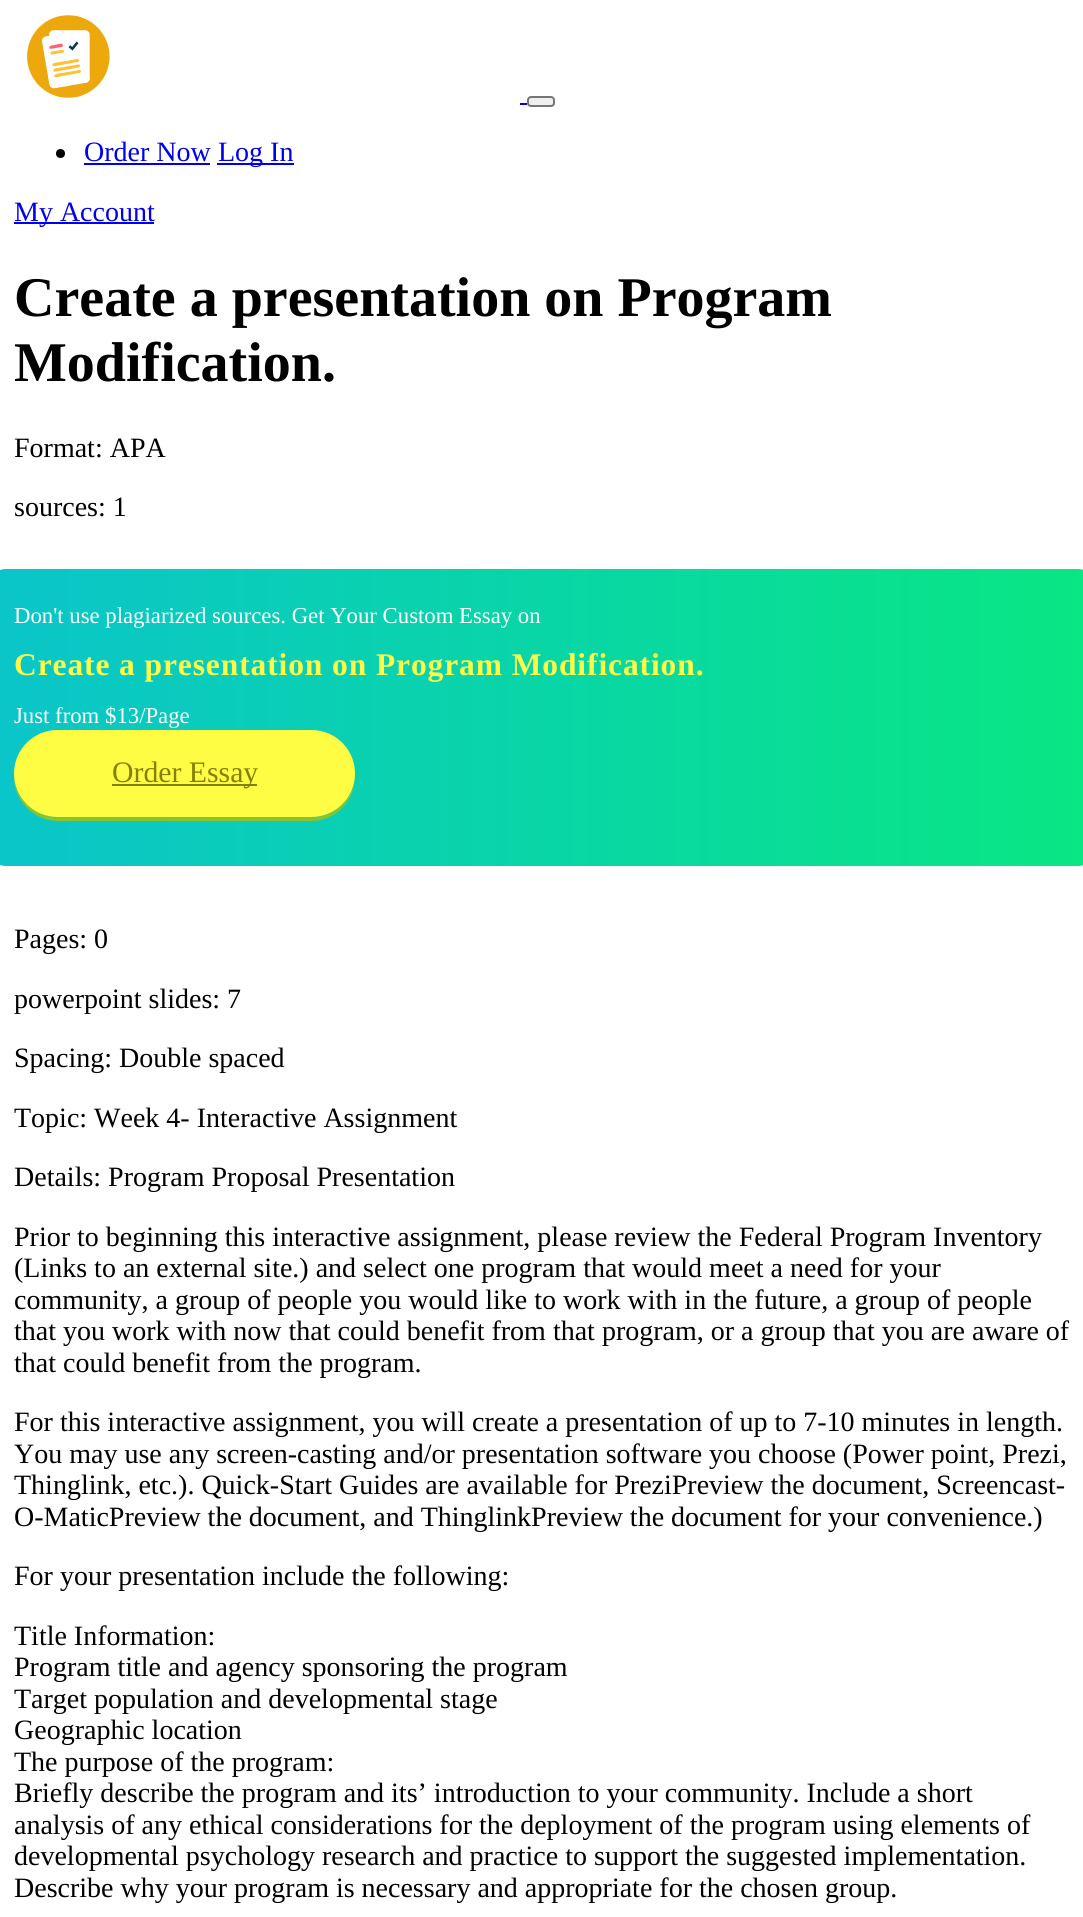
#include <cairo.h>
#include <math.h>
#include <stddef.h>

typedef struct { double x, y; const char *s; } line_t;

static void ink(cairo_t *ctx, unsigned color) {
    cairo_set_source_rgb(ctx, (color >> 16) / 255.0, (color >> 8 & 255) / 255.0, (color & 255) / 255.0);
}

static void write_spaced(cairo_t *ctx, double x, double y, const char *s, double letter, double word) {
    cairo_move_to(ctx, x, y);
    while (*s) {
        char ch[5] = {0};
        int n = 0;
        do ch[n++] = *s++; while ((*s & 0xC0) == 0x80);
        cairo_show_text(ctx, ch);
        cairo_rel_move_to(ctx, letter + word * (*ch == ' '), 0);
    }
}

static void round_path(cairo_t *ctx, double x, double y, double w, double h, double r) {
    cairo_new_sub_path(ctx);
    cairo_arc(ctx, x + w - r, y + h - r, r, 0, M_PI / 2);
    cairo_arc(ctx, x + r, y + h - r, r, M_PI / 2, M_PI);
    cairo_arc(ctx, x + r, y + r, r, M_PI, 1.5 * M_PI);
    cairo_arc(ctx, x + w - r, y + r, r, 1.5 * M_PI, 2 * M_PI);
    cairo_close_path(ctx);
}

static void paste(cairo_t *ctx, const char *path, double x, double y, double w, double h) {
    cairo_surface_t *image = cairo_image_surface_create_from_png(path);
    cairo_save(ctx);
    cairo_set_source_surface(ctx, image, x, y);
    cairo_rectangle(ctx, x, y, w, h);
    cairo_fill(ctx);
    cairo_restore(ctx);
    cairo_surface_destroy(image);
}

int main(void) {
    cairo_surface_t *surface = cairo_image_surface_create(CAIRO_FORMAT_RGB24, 1083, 1917);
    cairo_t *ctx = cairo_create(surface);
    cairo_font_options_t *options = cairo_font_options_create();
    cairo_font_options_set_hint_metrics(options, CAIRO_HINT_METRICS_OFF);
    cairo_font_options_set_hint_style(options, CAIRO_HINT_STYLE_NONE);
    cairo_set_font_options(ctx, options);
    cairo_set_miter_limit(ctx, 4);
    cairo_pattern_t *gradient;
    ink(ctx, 0xFFFFFF);
    cairo_paint(ctx);
    paste(ctx, "media/1.png", 27, 15, 83, 83);
    ink(ctx, 0x0000EE);
    cairo_rectangle(ctx, 520, 103, 7, 2);
    cairo_fill(ctx);
    ink(ctx, 0xEFEFEF);
    round_path(ctx, 528, 97, 26, 9, 3);
    cairo_fill_preserve(ctx);
    ink(ctx, 0x767676);
    cairo_stroke(ctx);
    ink(ctx, 0x000000);
    cairo_arc(ctx, 60.5, 153.5, 4.5, 0, 2 * M_PI);
    cairo_fill(ctx);
    cairo_select_font_face(ctx, "Liberation Serif", CAIRO_FONT_SLANT_NORMAL, CAIRO_FONT_WEIGHT_NORMAL);
    cairo_set_font_size(ctx, 28);
    ink(ctx, 0x0000EE);
    cairo_move_to(ctx, 84, 161);
    cairo_show_text(ctx, "Order Now");
    cairo_rectangle(ctx, 84, 163, 126, 2);
    cairo_fill(ctx);
    cairo_rectangle(ctx, 217, 163, 77, 2);
    cairo_fill(ctx);
    cairo_move_to(ctx, 218, 161);
    cairo_show_text(ctx, "Log In");
    cairo_rectangle(ctx, 14, 222, 140, 2);
    cairo_fill(ctx);
    cairo_move_to(ctx, 14, 221);
    cairo_show_text(ctx, "My Account");
    cairo_select_font_face(ctx, "Liberation Serif", CAIRO_FONT_SLANT_NORMAL, CAIRO_FONT_WEIGHT_BOLD);
    cairo_set_font_size(ctx, 56);
    ink(ctx, 0x000000);
    cairo_move_to(ctx, 14, 316);
    cairo_show_text(ctx, "Create a presentation on Program");
    cairo_move_to(ctx, 14, 381);
    cairo_show_text(ctx, "Modification.");
    cairo_select_font_face(ctx, "Liberation Serif", CAIRO_FONT_SLANT_NORMAL, CAIRO_FONT_WEIGHT_NORMAL);
    cairo_set_font_size(ctx, 28);
    cairo_move_to(ctx, 14, 457);
    cairo_show_text(ctx, "Format: APA");
    cairo_move_to(ctx, 14, 516);
    cairo_show_text(ctx, "sources: 1");
    gradient = cairo_pattern_create_linear(-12, 718, 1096, 718);
    cairo_pattern_add_color_stop_rgba(gradient, 0, 0.039, 0.773, 0.792, 1);
    cairo_pattern_add_color_stop_rgba(gradient, 1, 0.035, 0.902, 0.514, 1);
    cairo_set_source(ctx, gradient);
    cairo_pattern_destroy(gradient);
    round_path(ctx, -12, 569, 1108, 297, 18);
    cairo_fill(ctx);
    cairo_set_font_size(ctx, 22.75);
    ink(ctx, 0xFFFFFF);
    cairo_move_to(ctx, 14, 623);
    cairo_show_text(ctx, "Don't use plagiarized sources. Get Your Custom Essay on");
    cairo_select_font_face(ctx, "Liberation Serif", CAIRO_FONT_SLANT_NORMAL, CAIRO_FONT_WEIGHT_BOLD);
    cairo_set_font_size(ctx, 31.5);
    ink(ctx, 0xFFFC45);
    write_spaced(ctx, 14, 675, "Create a presentation on Program Modification.", 0.9, 0);
    cairo_select_font_face(ctx, "Liberation Serif", CAIRO_FONT_SLANT_NORMAL, CAIRO_FONT_WEIGHT_NORMAL);
    cairo_set_font_size(ctx, 22.75);
    ink(ctx, 0xFFFFFF);
    cairo_move_to(ctx, 14, 723);
    cairo_show_text(ctx, "Just from $13/Page");
    ink(ctx, 0x89C32E);
    cairo_new_path(ctx);
    cairo_move_to(ctx, 14, 775);
    cairo_line_to(ctx, 14, 777);
    cairo_curve_to(ctx, 14, 801, 34, 821, 58, 821);
    cairo_line_to(ctx, 311, 821);
    cairo_curve_to(ctx, 335, 821, 354, 802, 355, 778);
    cairo_curve_to(ctx, 353, 800, 334, 817, 312, 817);
    cairo_line_to(ctx, 58, 817);
    cairo_curve_to(ctx, 34, 817, 15, 799, 14, 775);
    cairo_close_path(ctx);
    cairo_fill(ctx);
    ink(ctx, 0xFFFC44);
    round_path(ctx, 14, 730, 341, 87, 43.5);
    cairo_fill(ctx);
    ink(ctx, 0x838100);
    cairo_rectangle(ctx, 112, 784, 145, 2);
    cairo_fill(ctx);
    cairo_set_font_size(ctx, 29.75);
    cairo_move_to(ctx, 112, 782);
    cairo_show_text(ctx, "Order Essay");
    cairo_set_font_size(ctx, 28);
    ink(ctx, 0x000000);
    {
        static const line_t items[] = {
            {14, 948, "Pages: 0"},
            {14, 1008, "powerpoint slides: 7"},
            {14, 1067, "Spacing: Double spaced"},
            {14, 1127, "Topic: Week 4- Interactive Assignment"},
            {14, 1186, "Details: Program Proposal Presentation"},
            {14, 1246, "Prior to beginning this interactive assignment, please review the Federal Program Inventory"},
            {14, 1277, "(Links to an external site.) and select one program that would meet a need for your"},
            {14, 1309, "community, a group of people you would like to work with in the future, a group of people"},
            {14, 1340, "that you work with now that could benefit from that program, or a group that you are aware of"},
            {14, 1372, "that could benefit from the program."},
            {14, 1431, "For this interactive assignment, you will create a presentation of up to 7-10 minutes in length."},
            {14, 1463, "You may use any screen-casting and/or presentation software you choose (Power point, Prezi,"},
            {14, 1494, "Thinglink, etc.). Quick-Start Guides are available for PreziPreview the document, Screencast-"},
            {14, 1526, "O-MaticPreview the document, and ThinglinkPreview the document for your convenience.)"},
            {14, 1585, "For your presentation include the following:"},
            {14, 1645, "Title Information:"},
            {14, 1676, "Program title and agency sponsoring the program"},
            {14, 1708, "Target population and developmental stage"},
            {14, 1739, "Geographic location"},
            {14, 1771, "The purpose of the program:"},
            {14, 1802, "Briefly describe the program and its’ introduction to your community. Include a short"},
            {14, 1834, "analysis of any ethical considerations for the deployment of the program using elements of"},
            {14, 1865, "developmental psychology research and practice to support the suggested implementation."},
            {14, 1897, "Describe why your program is necessary and appropriate for the chosen group."},
        };
        for (size_t i = 0; i < sizeof items / sizeof *items; i++) {
            cairo_move_to(ctx, items[i].x, items[i].y);
            cairo_show_text(ctx, items[i].s);
        }
    }
    cairo_surface_write_to_png(surface, "image.png");
    cairo_font_options_destroy(options);
    cairo_destroy(ctx);
    cairo_surface_destroy(surface);
    return 0;
}
